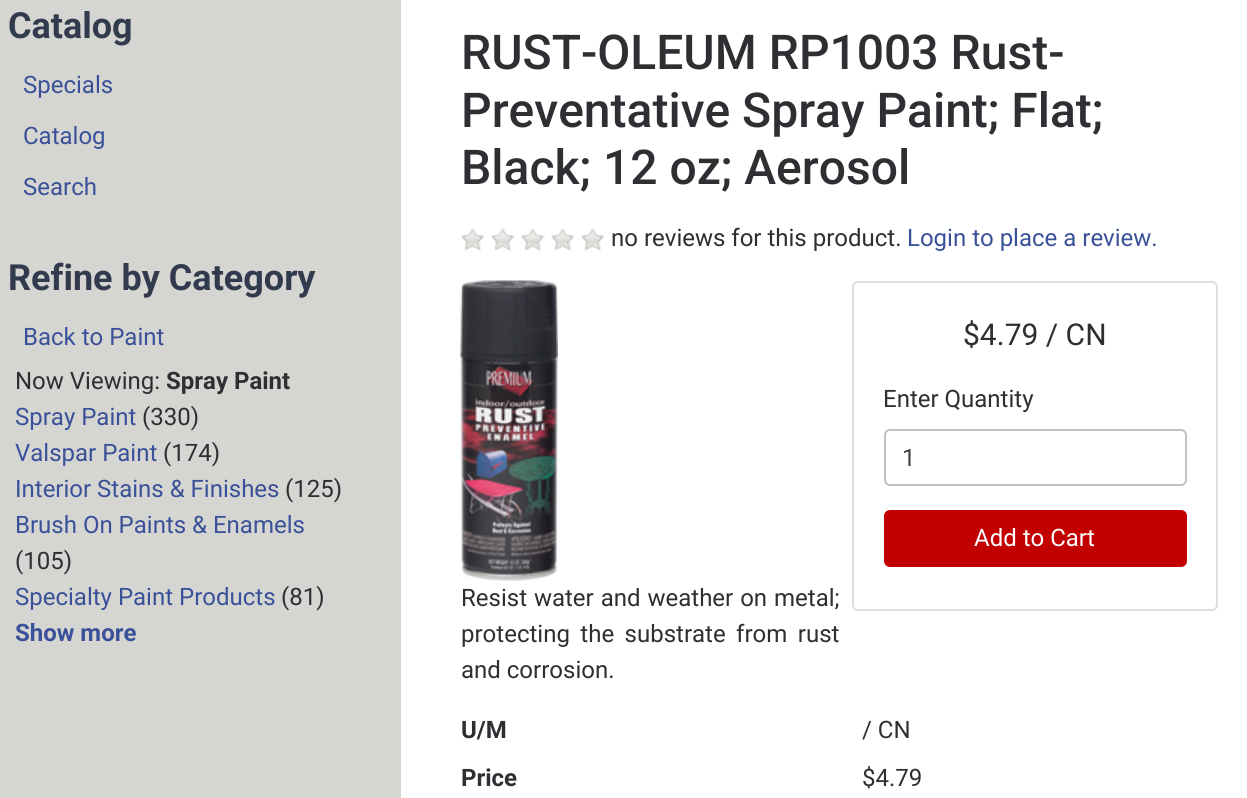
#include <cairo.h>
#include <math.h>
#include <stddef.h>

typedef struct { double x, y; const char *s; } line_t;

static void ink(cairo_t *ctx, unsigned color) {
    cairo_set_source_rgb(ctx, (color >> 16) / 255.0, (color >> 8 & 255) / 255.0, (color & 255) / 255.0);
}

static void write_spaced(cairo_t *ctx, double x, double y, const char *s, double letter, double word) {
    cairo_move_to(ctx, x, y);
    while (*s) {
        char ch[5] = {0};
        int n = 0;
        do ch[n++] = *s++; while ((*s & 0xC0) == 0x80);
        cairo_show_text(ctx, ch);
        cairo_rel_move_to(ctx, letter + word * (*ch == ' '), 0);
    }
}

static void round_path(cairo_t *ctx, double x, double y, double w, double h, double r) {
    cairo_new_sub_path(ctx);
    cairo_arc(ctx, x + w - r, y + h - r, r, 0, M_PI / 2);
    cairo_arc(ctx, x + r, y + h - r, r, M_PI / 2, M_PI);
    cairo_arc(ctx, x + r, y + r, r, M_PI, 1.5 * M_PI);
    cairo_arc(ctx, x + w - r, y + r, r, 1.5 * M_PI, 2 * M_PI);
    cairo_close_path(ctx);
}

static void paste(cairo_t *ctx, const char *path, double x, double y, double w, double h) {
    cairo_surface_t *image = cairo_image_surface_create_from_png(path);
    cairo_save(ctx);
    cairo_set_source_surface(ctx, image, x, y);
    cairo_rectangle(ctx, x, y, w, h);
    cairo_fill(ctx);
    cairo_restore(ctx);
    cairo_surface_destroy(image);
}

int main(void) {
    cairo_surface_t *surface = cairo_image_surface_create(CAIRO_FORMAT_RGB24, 1247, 798);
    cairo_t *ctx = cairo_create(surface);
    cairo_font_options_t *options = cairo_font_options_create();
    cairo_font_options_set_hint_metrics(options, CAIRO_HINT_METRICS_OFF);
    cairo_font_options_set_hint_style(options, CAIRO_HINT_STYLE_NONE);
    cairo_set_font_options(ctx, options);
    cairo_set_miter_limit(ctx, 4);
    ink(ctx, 0xFFFFFF);
    cairo_paint(ctx);
    ink(ctx, 0xD5D6D2);
    cairo_rectangle(ctx, 0, 0, 401, 798);
    cairo_fill(ctx);
    cairo_select_font_face(ctx, "Roboto", CAIRO_FONT_SLANT_NORMAL, CAIRO_FONT_WEIGHT_BOLD);
    cairo_set_font_size(ctx, 36);
    ink(ctx, 0x323A4D);
    cairo_move_to(ctx, 8, 38);
    cairo_show_text(ctx, "Catalog");
    cairo_select_font_face(ctx, "Roboto", CAIRO_FONT_SLANT_NORMAL, CAIRO_FONT_WEIGHT_NORMAL);
    cairo_set_font_size(ctx, 24);
    ink(ctx, 0x3A5199);
    {
        static const line_t items[] = {
            {23, 93, "Specials"},
            {23, 144, "Catalog"},
            {23, 195, "Search"},
        };
        for (size_t i = 0; i < sizeof items / sizeof *items; i++) {
            cairo_move_to(ctx, items[i].x, items[i].y);
            cairo_show_text(ctx, items[i].s);
        }
    }
    cairo_select_font_face(ctx, "Roboto", CAIRO_FONT_SLANT_NORMAL, CAIRO_FONT_WEIGHT_BOLD);
    cairo_set_font_size(ctx, 36);
    ink(ctx, 0x323A4D);
    cairo_move_to(ctx, 8, 290);
    cairo_show_text(ctx, "Refine by Category");
    cairo_select_font_face(ctx, "Roboto", CAIRO_FONT_SLANT_NORMAL, CAIRO_FONT_WEIGHT_NORMAL);
    cairo_set_font_size(ctx, 24);
    ink(ctx, 0x3A5199);
    cairo_move_to(ctx, 23, 345);
    cairo_show_text(ctx, "Back to Paint");
    ink(ctx, 0x2F2E33);
    cairo_move_to(ctx, 15, 389);
    cairo_show_text(ctx, "Now Viewing:");
    cairo_select_font_face(ctx, "Roboto", CAIRO_FONT_SLANT_NORMAL, CAIRO_FONT_WEIGHT_BOLD);
    cairo_move_to(ctx, 166, 389);
    cairo_show_text(ctx, "Spray Paint");
    cairo_select_font_face(ctx, "Roboto", CAIRO_FONT_SLANT_NORMAL, CAIRO_FONT_WEIGHT_NORMAL);
    ink(ctx, 0x3A5199);
    cairo_move_to(ctx, 15, 425);
    cairo_show_text(ctx, "Spray Paint");
    ink(ctx, 0x2F2E33);
    cairo_move_to(ctx, 142, 425);
    cairo_show_text(ctx, "(330)");
    ink(ctx, 0x3A5199);
    cairo_move_to(ctx, 15, 461);
    cairo_show_text(ctx, "Valspar Paint");
    ink(ctx, 0x2F2E33);
    cairo_move_to(ctx, 163, 461);
    cairo_show_text(ctx, "(174)");
    ink(ctx, 0x3A5199);
    cairo_move_to(ctx, 15, 497);
    cairo_show_text(ctx, "Interior Stains & Finishes");
    ink(ctx, 0x2F2E33);
    cairo_move_to(ctx, 285, 497);
    cairo_show_text(ctx, "(125)");
    ink(ctx, 0x3A5199);
    cairo_move_to(ctx, 15, 533);
    cairo_show_text(ctx, "Brush On Paints & Enamels");
    ink(ctx, 0x2F2E33);
    cairo_move_to(ctx, 15, 569);
    cairo_show_text(ctx, "(105)");
    ink(ctx, 0x3A5199);
    cairo_move_to(ctx, 15, 605);
    cairo_show_text(ctx, "Specialty Paint Products");
    ink(ctx, 0x2F2E33);
    cairo_move_to(ctx, 281, 605);
    cairo_show_text(ctx, "(81)");
    cairo_select_font_face(ctx, "Roboto", CAIRO_FONT_SLANT_NORMAL, CAIRO_FONT_WEIGHT_BOLD);
    ink(ctx, 0x3A5199);
    cairo_move_to(ctx, 15, 641);
    cairo_show_text(ctx, "Show more");
    cairo_select_font_face(ctx, "Roboto Medium", CAIRO_FONT_SLANT_NORMAL, CAIRO_FONT_WEIGHT_NORMAL);
    cairo_set_font_size(ctx, 48);
    ink(ctx, 0x2F2E33);
    {
        static const line_t items[] = {
            {461, 69, "RUST-OLEUM RP1003 Rust-"},
            {461, 127, "Preventative Spray Paint; Flat;"},
            {461, 184, "Black; 12 oz; Aerosol"},
        };
        for (size_t i = 0; i < sizeof items / sizeof *items; i++) {
            cairo_move_to(ctx, items[i].x, items[i].y);
            cairo_show_text(ctx, items[i].s);
        }
    }
    paste(ctx, "media/1.png", 461, 228, 24, 23);
    paste(ctx, "media/1.png", 491, 228, 24, 23);
    paste(ctx, "media/2.png", 521, 228, 24, 23);
    paste(ctx, "media/2.png", 551, 228, 24, 23);
    paste(ctx, "media/2.png", 581, 228, 24, 23);
    cairo_select_font_face(ctx, "Roboto", CAIRO_FONT_SLANT_NORMAL, CAIRO_FONT_WEIGHT_NORMAL);
    cairo_set_font_size(ctx, 24);
    cairo_move_to(ctx, 611, 246);
    cairo_show_text(ctx, "no reviews for this product.");
    ink(ctx, 0x3A5199);
    cairo_move_to(ctx, 907, 246);
    cairo_show_text(ctx, "Login to place a review.");
    paste(ctx, "media/3.png", 460, 280, 98, 301);
    round_path(ctx, 853, 282, 364, 328, 5);
    ink(ctx, 0xDFDFDF);
    cairo_stroke(ctx);
    cairo_set_font_size(ctx, 30);
    ink(ctx, 0x2F2E33);
    cairo_move_to(ctx, 963, 345);
    cairo_show_text(ctx, "$4.79 / CN");
    cairo_set_font_size(ctx, 24);
    cairo_move_to(ctx, 883, 407);
    cairo_show_text(ctx, "Enter Quantity");
    round_path(ctx, 885, 430, 301, 55, 5);
    ink(ctx, 0xC1C2BC);
    cairo_stroke(ctx);
    ink(ctx, 0x41433D);
    cairo_move_to(ctx, 902, 466);
    cairo_show_text(ctx, "1");
    ink(ctx, 0xC20000);
    round_path(ctx, 885, 511, 301, 55, 5);
    cairo_fill_preserve(ctx);
    cairo_stroke(ctx);
    ink(ctx, 0xFFFFFF);
    cairo_move_to(ctx, 974, 546);
    cairo_show_text(ctx, "Add to Cart");
    ink(ctx, 0x2F2E33);
    write_spaced(ctx, 461, 606, "Resist water and weather on metal;", 0, 1);
    write_spaced(ctx, 461, 642, "protecting the substrate from rust", 0, 4.5);
    cairo_move_to(ctx, 461, 678);
    cairo_show_text(ctx, "and corrosion.");
    cairo_select_font_face(ctx, "Roboto", CAIRO_FONT_SLANT_NORMAL, CAIRO_FONT_WEIGHT_BOLD);
    cairo_move_to(ctx, 461, 738);
    cairo_show_text(ctx, "U/M");
    cairo_select_font_face(ctx, "Roboto", CAIRO_FONT_SLANT_NORMAL, CAIRO_FONT_WEIGHT_NORMAL);
    cairo_move_to(ctx, 862, 738);
    cairo_show_text(ctx, "/ CN");
    cairo_select_font_face(ctx, "Roboto", CAIRO_FONT_SLANT_NORMAL, CAIRO_FONT_WEIGHT_BOLD);
    cairo_move_to(ctx, 461, 786);
    cairo_show_text(ctx, "Price");
    cairo_select_font_face(ctx, "Roboto", CAIRO_FONT_SLANT_NORMAL, CAIRO_FONT_WEIGHT_NORMAL);
    cairo_move_to(ctx, 862, 786);
    cairo_show_text(ctx, "$4.79");
    cairo_surface_write_to_png(surface, "image.png");
    cairo_font_options_destroy(options);
    cairo_destroy(ctx);
    cairo_surface_destroy(surface);
    return 0;
}
